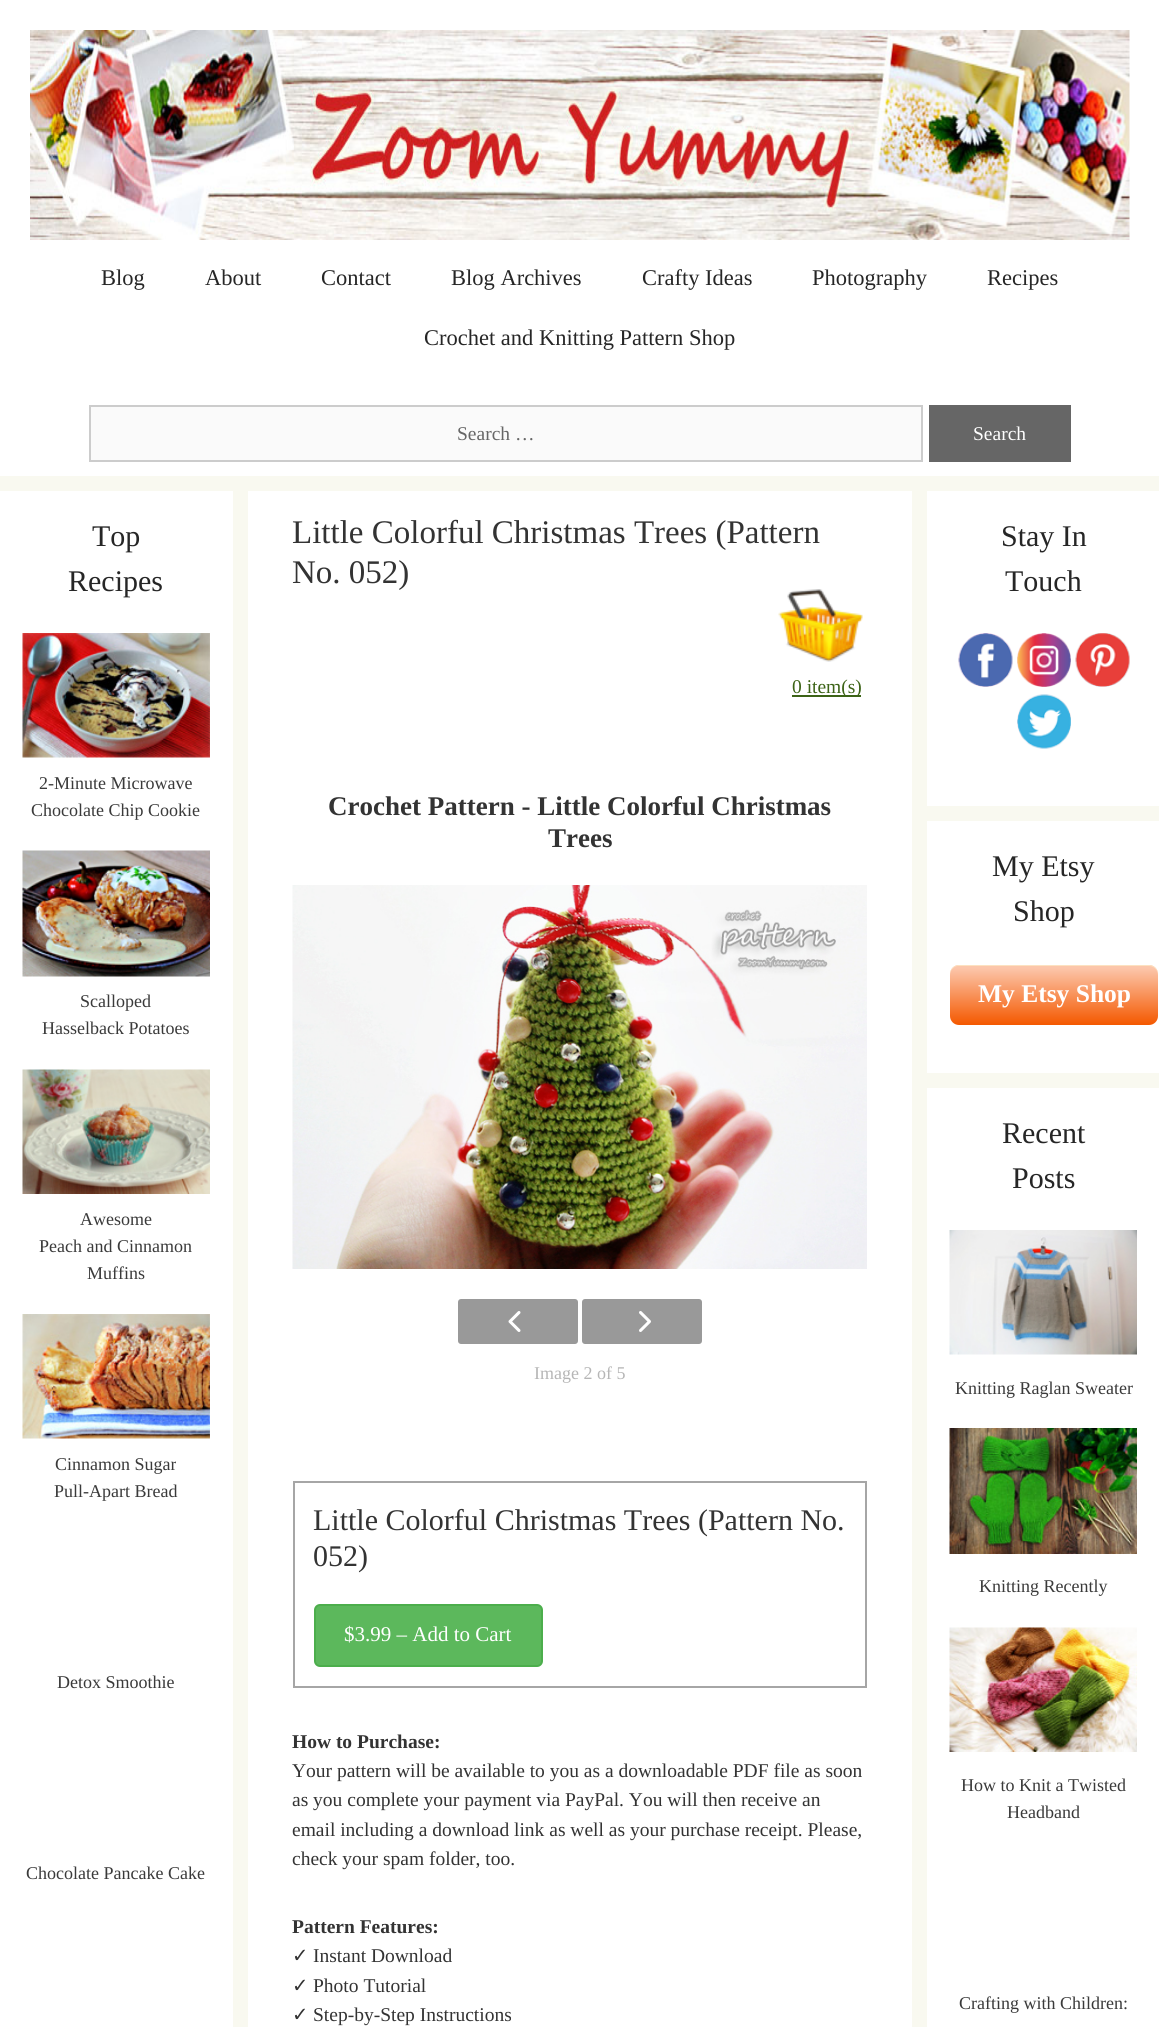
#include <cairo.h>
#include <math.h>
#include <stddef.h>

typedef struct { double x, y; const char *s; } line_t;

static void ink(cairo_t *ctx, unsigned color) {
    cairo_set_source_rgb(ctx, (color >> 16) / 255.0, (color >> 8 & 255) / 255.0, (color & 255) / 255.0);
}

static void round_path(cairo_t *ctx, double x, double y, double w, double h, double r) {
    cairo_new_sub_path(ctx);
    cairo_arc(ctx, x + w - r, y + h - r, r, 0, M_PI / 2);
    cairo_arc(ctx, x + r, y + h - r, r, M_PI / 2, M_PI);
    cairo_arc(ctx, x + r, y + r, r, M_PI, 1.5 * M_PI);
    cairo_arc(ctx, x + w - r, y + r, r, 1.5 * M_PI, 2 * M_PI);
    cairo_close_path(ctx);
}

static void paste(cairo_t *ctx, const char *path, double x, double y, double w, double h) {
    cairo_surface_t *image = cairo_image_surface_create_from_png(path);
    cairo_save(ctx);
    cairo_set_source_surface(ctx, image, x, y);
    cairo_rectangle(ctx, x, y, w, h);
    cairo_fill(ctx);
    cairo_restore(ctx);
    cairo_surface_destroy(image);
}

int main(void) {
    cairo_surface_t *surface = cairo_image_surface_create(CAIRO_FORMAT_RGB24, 1159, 2027);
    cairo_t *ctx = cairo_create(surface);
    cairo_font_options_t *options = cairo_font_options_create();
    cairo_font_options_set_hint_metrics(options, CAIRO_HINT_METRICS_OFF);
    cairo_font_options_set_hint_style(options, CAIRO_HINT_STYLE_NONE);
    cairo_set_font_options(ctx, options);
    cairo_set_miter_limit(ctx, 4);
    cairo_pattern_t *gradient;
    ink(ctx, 0xF9F9F0);
    cairo_paint(ctx);
    ink(ctx, 0xFFFFFF);
    cairo_rectangle(ctx, 0, 0, 1159, 476);
    cairo_fill(ctx);
    paste(ctx, "media/1.png", 30, 30, 1100, 210);
    cairo_select_font_face(ctx, "Liberation Serif", CAIRO_FONT_SLANT_NORMAL, CAIRO_FONT_WEIGHT_NORMAL);
    cairo_set_font_size(ctx, 22.5);
    ink(ctx, 0x262626);
    {
        static const line_t items[] = {
            {101, 285, "Blog"},
            {205, 285, "About"},
            {321, 285, "Contact"},
            {451, 285, "Blog Archives"},
            {642, 285, "Crafty Ideas"},
            {812, 285, "Photography"},
            {987, 285, "Recipes"},
            {424, 345, "Crochet and Knitting Pattern Shop"},
        };
        for (size_t i = 0; i < sizeof items / sizeof *items; i++) {
            cairo_move_to(ctx, items[i].x, items[i].y);
            cairo_show_text(ctx, items[i].s);
        }
    }
    ink(ctx, 0xFAFAFA);
    cairo_rectangle(ctx, 90, 406, 832, 55);
    cairo_fill_preserve(ctx);
    ink(ctx, 0xCCCCCC);
    cairo_stroke(ctx);
    cairo_set_font_size(ctx, 19.5);
    ink(ctx, 0x666666);
    cairo_move_to(ctx, 457, 440);
    cairo_show_text(ctx, "Search …");
    cairo_rectangle(ctx, 929, 405, 142, 57);
    cairo_fill(ctx);
    ink(ctx, 0xFFFFFF);
    cairo_move_to(ctx, 973, 440);
    cairo_show_text(ctx, "Search");
    cairo_rectangle(ctx, 0, 491, 233, 1536);
    cairo_fill(ctx);
    cairo_set_font_size(ctx, 30);
    ink(ctx, 0x262626);
    cairo_move_to(ctx, 92, 546);
    cairo_show_text(ctx, "Top");
    cairo_move_to(ctx, 68, 591);
    cairo_show_text(ctx, "Recipes");
    paste(ctx, "media/2.png", 22, 633, 188, 125);
    cairo_set_font_size(ctx, 18);
    ink(ctx, 0x3A3A3A);
    cairo_move_to(ctx, 39, 789);
    cairo_show_text(ctx, "2-Minute Microwave");
    cairo_move_to(ctx, 31, 816);
    cairo_show_text(ctx, "Chocolate Chip Cookie");
    paste(ctx, "media/3.png", 22, 850, 188, 127);
    cairo_move_to(ctx, 80, 1007);
    cairo_show_text(ctx, "Scalloped");
    cairo_move_to(ctx, 42, 1034);
    cairo_show_text(ctx, "Hasselback Potatoes");
    paste(ctx, "media/4.png", 22, 1069, 188, 125);
    {
        static const line_t items[] = {
            {80, 1225, "Awesome"},
            {39, 1252, "Peach and Cinnamon"},
            {87, 1279, "Muffins"},
        };
        for (size_t i = 0; i < sizeof items / sizeof *items; i++) {
            cairo_move_to(ctx, items[i].x, items[i].y);
            cairo_show_text(ctx, items[i].s);
        }
    }
    paste(ctx, "media/5.png", 22, 1314, 188, 125);
    {
        static const line_t items[] = {
            {55, 1470, "Cinnamon Sugar"},
            {54, 1497, "Pull-Apart Bread"},
            {57, 1688, "Detox Smoothie"},
            {26, 1879, "Chocolate Pancake Cake"},
        };
        for (size_t i = 0; i < sizeof items / sizeof *items; i++) {
            cairo_move_to(ctx, items[i].x, items[i].y);
            cairo_show_text(ctx, items[i].s);
        }
    }
    ink(ctx, 0xFFFFFF);
    cairo_rectangle(ctx, 248, 491, 664, 1536);
    cairo_fill(ctx);
    cairo_set_font_size(ctx, 33);
    ink(ctx, 0x333333);
    cairo_move_to(ctx, 292, 543);
    cairo_show_text(ctx, "Little Colorful Christmas Trees (Pattern");
    cairo_move_to(ctx, 292, 583);
    cairo_show_text(ctx, "No. 052)");
    paste(ctx, "media/6.png", 778, 589, 85, 73);
    ink(ctx, 0x3C6316);
    cairo_rectangle(ctx, 792, 695, 69, 2);
    cairo_fill(ctx);
    cairo_set_font_size(ctx, 19.5);
    cairo_move_to(ctx, 792, 693);
    cairo_show_text(ctx, "0 item(s)");
    cairo_select_font_face(ctx, "Liberation Serif", CAIRO_FONT_SLANT_NORMAL, CAIRO_FONT_WEIGHT_BOLD);
    cairo_set_font_size(ctx, 27);
    ink(ctx, 0x333333);
    cairo_move_to(ctx, 328, 815);
    cairo_show_text(ctx, "Crochet Pattern - Little Colorful Christmas");
    cairo_move_to(ctx, 548, 847);
    cairo_show_text(ctx, "Trees");
    paste(ctx, "media/7.png", 292, 885, 575, 384);
    ink(ctx, 0x999999);
    round_path(ctx, 458, 1299, 120, 45, 3);
    cairo_fill(ctx);
    paste(ctx, "media/8.png", 508, 1311, 13, 21);
    round_path(ctx, 582, 1299, 120, 45, 3);
    cairo_fill(ctx);
    paste(ctx, "media/9.png", 639, 1311, 12, 21);
    cairo_select_font_face(ctx, "Liberation Serif", CAIRO_FONT_SLANT_NORMAL, CAIRO_FONT_WEIGHT_NORMAL);
    cairo_set_font_size(ctx, 18);
    ink(ctx, 0xB6B6B6);
    cairo_move_to(ctx, 534, 1379);
    cairo_show_text(ctx, "Image 2 of 5");
    cairo_rectangle(ctx, 294, 1482, 572, 205);
    ink(ctx, 0xA6A6A6);
    cairo_stroke(ctx);
    cairo_set_font_size(ctx, 30);
    ink(ctx, 0x333333);
    cairo_move_to(ctx, 313, 1530);
    cairo_show_text(ctx, "Little Colorful Christmas Trees (Pattern No.");
    cairo_move_to(ctx, 313, 1566);
    cairo_show_text(ctx, "052)");
    ink(ctx, 0x5CB85C);
    round_path(ctx, 315, 1605, 227, 61, 5);
    cairo_fill_preserve(ctx);
    ink(ctx, 0x4CAE4C);
    cairo_stroke(ctx);
    cairo_set_font_size(ctx, 21);
    ink(ctx, 0xFFFFFF);
    cairo_move_to(ctx, 344, 1641);
    cairo_show_text(ctx, "$3.99 – Add to Cart");
    cairo_select_font_face(ctx, "Liberation Serif", CAIRO_FONT_SLANT_NORMAL, CAIRO_FONT_WEIGHT_BOLD);
    cairo_set_font_size(ctx, 19.5);
    ink(ctx, 0x333333);
    cairo_move_to(ctx, 292, 1748);
    cairo_show_text(ctx, "How to Purchase:");
    cairo_select_font_face(ctx, "Liberation Serif", CAIRO_FONT_SLANT_NORMAL, CAIRO_FONT_WEIGHT_NORMAL);
    {
        static const line_t items[] = {
            {292, 1777, "Your pattern will be available to you as a downloadable PDF file as soon"},
            {292, 1806, "as you complete your payment via PayPal. You will then receive an"},
            {292, 1836, "email including a download link as well as your purchase receipt. Please,"},
            {292, 1865, "check your spam folder, too."},
        };
        for (size_t i = 0; i < sizeof items / sizeof *items; i++) {
            cairo_move_to(ctx, items[i].x, items[i].y);
            cairo_show_text(ctx, items[i].s);
        }
    }
    cairo_select_font_face(ctx, "Liberation Serif", CAIRO_FONT_SLANT_NORMAL, CAIRO_FONT_WEIGHT_BOLD);
    cairo_move_to(ctx, 292, 1933);
    cairo_show_text(ctx, "Pattern Features:");
    cairo_select_font_face(ctx, "DejaVu Sans", CAIRO_FONT_SLANT_NORMAL, CAIRO_FONT_WEIGHT_NORMAL);
    cairo_move_to(ctx, 292, 1962);
    cairo_show_text(ctx, "✓");
    cairo_select_font_face(ctx, "Liberation Serif", CAIRO_FONT_SLANT_NORMAL, CAIRO_FONT_WEIGHT_NORMAL);
    cairo_move_to(ctx, 313, 1962);
    cairo_show_text(ctx, "Instant Download");
    cairo_select_font_face(ctx, "DejaVu Sans", CAIRO_FONT_SLANT_NORMAL, CAIRO_FONT_WEIGHT_NORMAL);
    cairo_move_to(ctx, 292, 1992);
    cairo_show_text(ctx, "✓");
    cairo_select_font_face(ctx, "Liberation Serif", CAIRO_FONT_SLANT_NORMAL, CAIRO_FONT_WEIGHT_NORMAL);
    cairo_move_to(ctx, 313, 1992);
    cairo_show_text(ctx, "Photo Tutorial");
    cairo_select_font_face(ctx, "DejaVu Sans", CAIRO_FONT_SLANT_NORMAL, CAIRO_FONT_WEIGHT_NORMAL);
    cairo_move_to(ctx, 292, 2021);
    cairo_show_text(ctx, "✓");
    cairo_select_font_face(ctx, "Liberation Serif", CAIRO_FONT_SLANT_NORMAL, CAIRO_FONT_WEIGHT_NORMAL);
    cairo_move_to(ctx, 313, 2021);
    cairo_show_text(ctx, "Step-by-Step Instructions");
    ink(ctx, 0xFFFFFF);
    cairo_rectangle(ctx, 927, 491, 232, 315);
    cairo_fill(ctx);
    cairo_set_font_size(ctx, 30);
    ink(ctx, 0x262626);
    cairo_move_to(ctx, 1001, 546);
    cairo_show_text(ctx, "Stay In");
    cairo_move_to(ctx, 1005, 591);
    cairo_show_text(ctx, "Touch");
    paste(ctx, "media/10.png", 958, 633, 55, 54);
    paste(ctx, "media/11.png", 1017, 633, 54, 54);
    paste(ctx, "media/12.png", 1075, 633, 55, 54);
    paste(ctx, "media/13.png", 1017, 694, 54, 55);
    ink(ctx, 0xFFFFFF);
    cairo_rectangle(ctx, 927, 821, 232, 252);
    cairo_fill(ctx);
    ink(ctx, 0x262626);
    cairo_move_to(ctx, 992, 876);
    cairo_show_text(ctx, "My Etsy");
    cairo_move_to(ctx, 1013, 921);
    cairo_show_text(ctx, "Shop");
    gradient = cairo_pattern_create_linear(950, 965, 950, 1025);
    cairo_pattern_add_color_stop_rgba(gradient, 0.05, 0.988, 0.776, 0.667, 1);
    cairo_pattern_add_color_stop_rgba(gradient, 1, 0.957, 0.345, 0, 1);
    cairo_set_source(ctx, gradient);
    cairo_pattern_destroy(gradient);
    round_path(ctx, 950, 965, 208, 60, 9);
    cairo_fill(ctx);
    ink(ctx, 0xFCE2C1);
    cairo_new_path(ctx);
    cairo_move_to(ctx, 958, 966);
    cairo_line_to(ctx, 1149, 966);
    cairo_curve_to(ctx, 1154, 966, 1158, 970, 1158, 975);
    cairo_line_to(ctx, 1158, 974);
    cairo_curve_to(ctx, 1158, 969, 1154, 965, 1149, 965);
    cairo_line_to(ctx, 959, 965);
    cairo_curve_to(ctx, 954, 965, 950, 969, 950, 974);
    cairo_line_to(ctx, 950, 975);
    cairo_curve_to(ctx, 950, 970, 954, 966, 958, 966);
    cairo_close_path(ctx);
    cairo_fill(ctx);
    cairo_select_font_face(ctx, "Liberation Serif", CAIRO_FONT_SLANT_NORMAL, CAIRO_FONT_WEIGHT_BOLD);
    cairo_set_font_size(ctx, 25.5);
    ink(ctx, 0xFFFFFF);
    cairo_move_to(ctx, 978, 1002);
    cairo_show_text(ctx, "My Etsy Shop");
    cairo_rectangle(ctx, 927, 1088, 232, 939);
    cairo_fill(ctx);
    cairo_select_font_face(ctx, "Liberation Serif", CAIRO_FONT_SLANT_NORMAL, CAIRO_FONT_WEIGHT_NORMAL);
    cairo_set_font_size(ctx, 30);
    ink(ctx, 0x262626);
    cairo_move_to(ctx, 1002, 1143);
    cairo_show_text(ctx, "Recent");
    cairo_move_to(ctx, 1012, 1188);
    cairo_show_text(ctx, "Posts");
    paste(ctx, "media/14.png", 949, 1230, 188, 125);
    cairo_set_font_size(ctx, 18);
    ink(ctx, 0x3A3A3A);
    cairo_move_to(ctx, 955, 1394);
    cairo_show_text(ctx, "Knitting Raglan Sweater");
    paste(ctx, "media/15.png", 949, 1428, 188, 126);
    cairo_move_to(ctx, 979, 1592);
    cairo_show_text(ctx, "Knitting Recently");
    paste(ctx, "media/16.png", 949, 1627, 188, 125);
    {
        static const line_t items[] = {
            {961, 1791, "How to Knit a Twisted"},
            {1007, 1818, "Headband"},
            {959, 2009, "Crafting with Children:"},
        };
        for (size_t i = 0; i < sizeof items / sizeof *items; i++) {
            cairo_move_to(ctx, items[i].x, items[i].y);
            cairo_show_text(ctx, items[i].s);
        }
    }
    cairo_surface_write_to_png(surface, "image.png");
    cairo_font_options_destroy(options);
    cairo_destroy(ctx);
    cairo_surface_destroy(surface);
    return 0;
}
